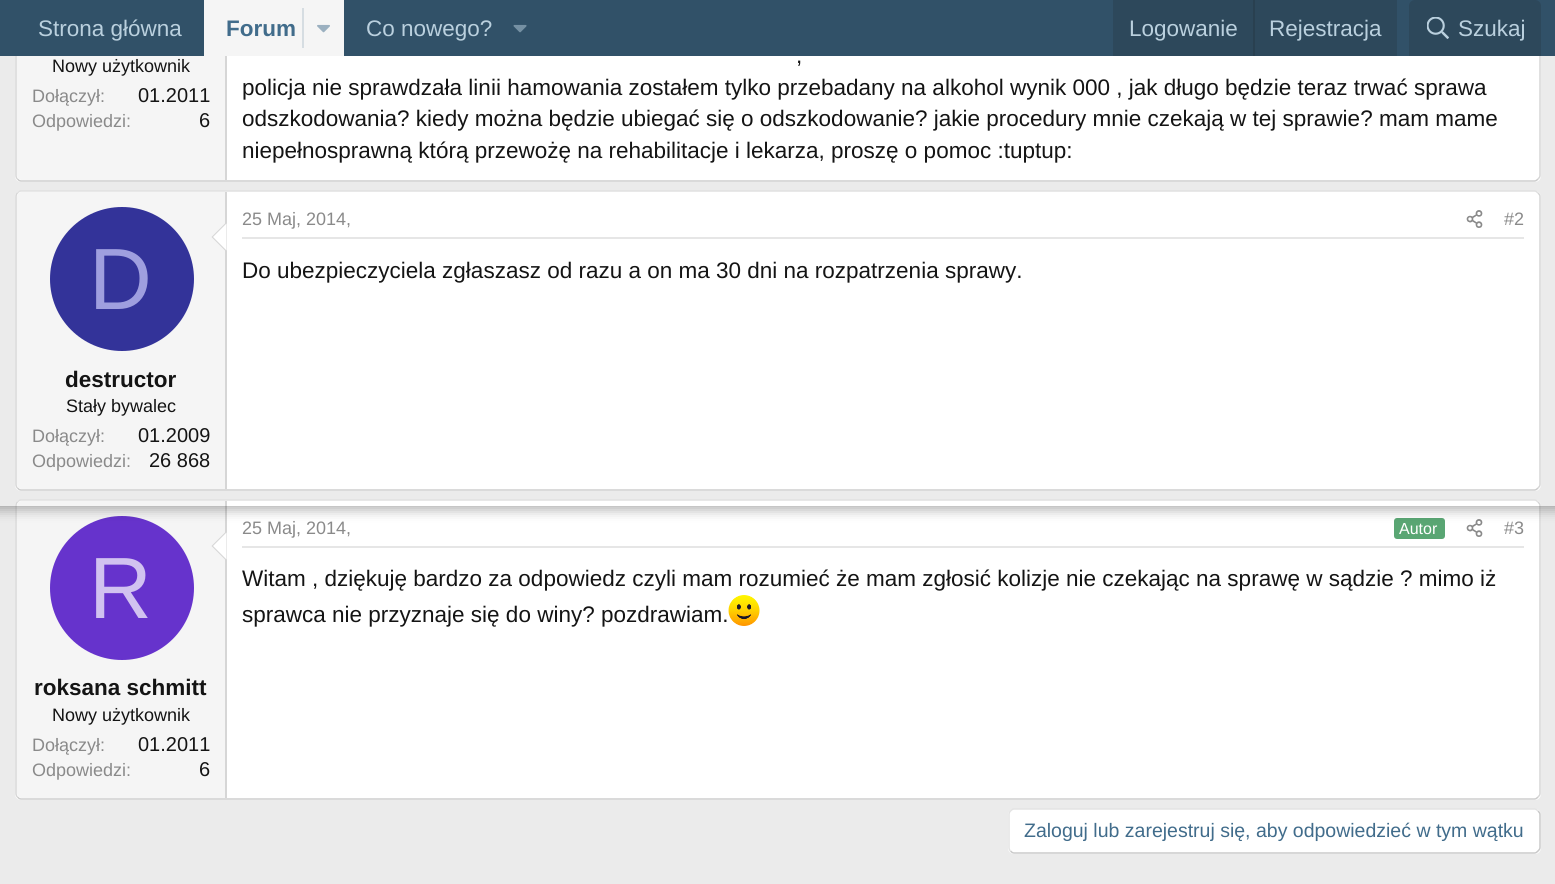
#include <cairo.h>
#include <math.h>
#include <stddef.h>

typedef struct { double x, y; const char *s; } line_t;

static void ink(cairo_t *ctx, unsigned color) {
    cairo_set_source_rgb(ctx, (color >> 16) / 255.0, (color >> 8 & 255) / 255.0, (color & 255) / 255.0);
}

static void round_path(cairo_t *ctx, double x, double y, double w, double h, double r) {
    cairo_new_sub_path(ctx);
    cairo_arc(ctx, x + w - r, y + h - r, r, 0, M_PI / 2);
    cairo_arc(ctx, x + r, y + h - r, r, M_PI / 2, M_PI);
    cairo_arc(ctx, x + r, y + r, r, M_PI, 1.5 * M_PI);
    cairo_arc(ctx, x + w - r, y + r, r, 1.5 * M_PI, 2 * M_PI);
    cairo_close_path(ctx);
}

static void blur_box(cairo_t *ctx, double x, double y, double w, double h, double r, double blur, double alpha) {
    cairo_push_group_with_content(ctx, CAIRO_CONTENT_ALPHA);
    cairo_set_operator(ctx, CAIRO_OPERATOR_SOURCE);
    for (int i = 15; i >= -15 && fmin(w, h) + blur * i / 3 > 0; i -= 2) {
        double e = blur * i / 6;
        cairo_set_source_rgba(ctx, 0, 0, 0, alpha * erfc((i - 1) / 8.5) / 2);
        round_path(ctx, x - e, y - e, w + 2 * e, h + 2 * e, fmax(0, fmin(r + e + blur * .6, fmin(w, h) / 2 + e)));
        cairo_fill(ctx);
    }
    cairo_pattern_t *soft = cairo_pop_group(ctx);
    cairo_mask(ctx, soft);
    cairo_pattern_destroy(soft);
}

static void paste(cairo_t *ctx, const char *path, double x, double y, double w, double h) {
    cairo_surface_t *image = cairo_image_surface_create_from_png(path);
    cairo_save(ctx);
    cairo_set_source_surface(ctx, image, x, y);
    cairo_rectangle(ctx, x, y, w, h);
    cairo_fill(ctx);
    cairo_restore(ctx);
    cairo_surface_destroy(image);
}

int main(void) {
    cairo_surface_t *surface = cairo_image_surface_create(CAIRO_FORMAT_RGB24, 1555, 884);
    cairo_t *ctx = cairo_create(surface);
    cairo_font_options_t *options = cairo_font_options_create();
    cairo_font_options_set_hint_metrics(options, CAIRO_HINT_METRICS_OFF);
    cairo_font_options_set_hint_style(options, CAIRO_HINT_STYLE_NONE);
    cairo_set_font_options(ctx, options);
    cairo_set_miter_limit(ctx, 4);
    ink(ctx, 0xEBEBEB);
    cairo_paint(ctx);
    ink(ctx, 0xFFFFFF);
    round_path(ctx, 15, -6, 1526, 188, 6);
    cairo_fill(ctx);
    cairo_new_path(ctx);
    cairo_move_to(ctx, 1538, -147.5);
    cairo_curve_to(ctx, 1539, -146.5, 1540, -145.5, 1540, -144);
    cairo_line_to(ctx, 1540, 175.5);
    cairo_curve_to(ctx, 1540, 177, 1539, 178, 1538, 179);
    ink(ctx, 0xD6D6D6);
    cairo_set_line_width(ctx, 1.5);
    cairo_stroke(ctx);
    cairo_new_path(ctx);
    cairo_move_to(ctx, 1538, 179);
    cairo_curve_to(ctx, 1537, 180, 1536, 181, 1534.5, 181);
    cairo_line_to(ctx, 21, 181);
    cairo_curve_to(ctx, 19.5, 181, 18.5, 180, 17.5, 179);
    ink(ctx, 0xCCCCCC);
    cairo_stroke(ctx);
    cairo_new_path(ctx);
    cairo_move_to(ctx, 17.5, 179);
    cairo_curve_to(ctx, 16.5, 178, 16, 177, 16, 175.5);
    cairo_line_to(ctx, 16, -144);
    cairo_curve_to(ctx, 16, -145.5, 16.5, -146.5, 17.5, -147.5);
    ink(ctx, 0xD6D6D6);
    cairo_stroke(ctx);
    ink(ctx, 0xF5F5F5);
    cairo_new_path(ctx);
    cairo_move_to(ctx, 22, -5);
    cairo_line_to(ctx, 227, -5);
    cairo_line_to(ctx, 227, 180);
    cairo_line_to(ctx, 22, 180);
    cairo_curve_to(ctx, 19, 180, 17, 178, 17, 175);
    cairo_line_to(ctx, 17, 0);
    cairo_curve_to(ctx, 17, -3, 19, -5, 22, -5);
    cairo_close_path(ctx);
    cairo_fill(ctx);
    ink(ctx, 0xD6D6D6);
    cairo_rectangle(ctx, 225, 56, 2, 124);
    cairo_fill(ctx);
    ink(ctx, 0xFFFFFF);
    round_path(ctx, 15, 191, 1526, 300, 6);
    cairo_fill(ctx);
    cairo_new_path(ctx);
    cairo_move_to(ctx, 17.5, 193);
    cairo_curve_to(ctx, 18.5, 192, 19.5, 191, 21, 191);
    cairo_line_to(ctx, 1534.5, 191);
    cairo_curve_to(ctx, 1536, 191, 1537, 192, 1538, 193);
    ink(ctx, 0xE0E0E0);
    cairo_stroke(ctx);
    cairo_new_path(ctx);
    cairo_move_to(ctx, 1538, 193);
    cairo_curve_to(ctx, 1539, 194, 1540, 195, 1540, 196.5);
    cairo_line_to(ctx, 1540, 484.5);
    cairo_curve_to(ctx, 1540, 486, 1539, 487, 1538, 488);
    ink(ctx, 0xD6D6D6);
    cairo_stroke(ctx);
    cairo_new_path(ctx);
    cairo_move_to(ctx, 1538, 488);
    cairo_curve_to(ctx, 1537, 489, 1536, 490, 1534.5, 490);
    cairo_line_to(ctx, 21, 490);
    cairo_curve_to(ctx, 19.5, 490, 18.5, 489, 17.5, 488);
    ink(ctx, 0xCCCCCC);
    cairo_stroke(ctx);
    cairo_new_path(ctx);
    cairo_move_to(ctx, 17.5, 488);
    cairo_curve_to(ctx, 16.5, 487, 16, 486, 16, 484.5);
    cairo_line_to(ctx, 16, 196.5);
    cairo_curve_to(ctx, 16, 195, 16.5, 194, 17.5, 193);
    ink(ctx, 0xD6D6D6);
    cairo_stroke(ctx);
    ink(ctx, 0xF5F5F5);
    cairo_new_path(ctx);
    cairo_move_to(ctx, 22, 192);
    cairo_line_to(ctx, 227, 192);
    cairo_line_to(ctx, 227, 489);
    cairo_line_to(ctx, 22, 489);
    cairo_curve_to(ctx, 19, 489, 17, 487, 17, 484);
    cairo_line_to(ctx, 17, 197);
    cairo_curve_to(ctx, 17, 194, 19, 192, 22, 192);
    cairo_close_path(ctx);
    cairo_fill(ctx);
    ink(ctx, 0xD6D6D6);
    cairo_rectangle(ctx, 225, 192, 2, 297);
    cairo_fill(ctx);
    cairo_new_path(ctx);
    cairo_move_to(ctx, 226.5, 222);
    cairo_line_to(ctx, 226.5, 252);
    cairo_line_to(ctx, 211.5, 237);
    cairo_close_path(ctx);
    cairo_fill(ctx);
    ink(ctx, 0xFFFFFF);
    cairo_new_path(ctx);
    cairo_move_to(ctx, 226.5, 223.5);
    cairo_line_to(ctx, 226.5, 250.5);
    cairo_line_to(ctx, 213, 237);
    cairo_close_path(ctx);
    cairo_fill(ctx);
    ink(ctx, 0x333399);
    cairo_arc(ctx, 122, 279, 72, 0, 2 * M_PI);
    cairo_fill(ctx);
    ink(ctx, 0xE6E6E6);
    cairo_rectangle(ctx, 242, 237, 1282, 2);
    cairo_fill(ctx);
    paste(ctx, "media/4.png", 1466, 210, 17, 18);
    ink(ctx, 0xFFFFFF);
    round_path(ctx, 15, 500, 1526, 300, 6);
    cairo_fill(ctx);
    cairo_new_path(ctx);
    cairo_move_to(ctx, 17.5, 502);
    cairo_curve_to(ctx, 18.5, 501, 19.5, 500, 21, 500);
    cairo_line_to(ctx, 1534.5, 500);
    cairo_curve_to(ctx, 1536, 500, 1537, 501, 1538, 502);
    ink(ctx, 0xE0E0E0);
    cairo_stroke(ctx);
    cairo_new_path(ctx);
    cairo_move_to(ctx, 1538, 502);
    cairo_curve_to(ctx, 1539, 503, 1540, 504, 1540, 505.5);
    cairo_line_to(ctx, 1540, 793.5);
    cairo_curve_to(ctx, 1540, 795, 1539, 796, 1538, 797);
    ink(ctx, 0xD6D6D6);
    cairo_stroke(ctx);
    cairo_new_path(ctx);
    cairo_move_to(ctx, 1538, 797);
    cairo_curve_to(ctx, 1537, 798, 1536, 799, 1534.5, 799);
    cairo_line_to(ctx, 21, 799);
    cairo_curve_to(ctx, 19.5, 799, 18.5, 798, 17.5, 797);
    ink(ctx, 0xCCCCCC);
    cairo_stroke(ctx);
    cairo_new_path(ctx);
    cairo_move_to(ctx, 17.5, 797);
    cairo_curve_to(ctx, 16.5, 796, 16, 795, 16, 793.5);
    cairo_line_to(ctx, 16, 505.5);
    cairo_curve_to(ctx, 16, 504, 16.5, 503, 17.5, 502);
    ink(ctx, 0xD6D6D6);
    cairo_stroke(ctx);
    ink(ctx, 0xF5F5F5);
    cairo_new_path(ctx);
    cairo_move_to(ctx, 22, 501);
    cairo_line_to(ctx, 227, 501);
    cairo_line_to(ctx, 227, 798);
    cairo_line_to(ctx, 22, 798);
    cairo_curve_to(ctx, 19, 798, 17, 796, 17, 793);
    cairo_line_to(ctx, 17, 506);
    cairo_curve_to(ctx, 17, 503, 19, 501, 22, 501);
    cairo_close_path(ctx);
    cairo_fill(ctx);
    ink(ctx, 0xD6D6D6);
    cairo_rectangle(ctx, 225, 501, 2, 297);
    cairo_fill(ctx);
    ink(ctx, 0x6633CC);
    cairo_arc(ctx, 122, 588, 72, 0, 2 * M_PI);
    cairo_fill(ctx);
    ink(ctx, 0x59A673);
    round_path(ctx, 1394, 518, 51, 21, 3);
    cairo_fill(ctx);
    paste(ctx, "media/4.png", 1466, 519, 17, 18);
    cairo_save(ctx);
    cairo_set_fill_rule(ctx, CAIRO_FILL_RULE_EVEN_ODD);
    cairo_new_path(ctx);
    cairo_move_to(ctx, 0, 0);
    cairo_line_to(ctx, 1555, 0);
    cairo_line_to(ctx, 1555, 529);
    cairo_line_to(ctx, 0, 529);
    cairo_close_path(ctx);
    cairo_move_to(ctx, 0, 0);
    cairo_line_to(ctx, 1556, 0);
    cairo_line_to(ctx, 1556, 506);
    cairo_line_to(ctx, 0, 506);
    cairo_close_path(ctx);
    cairo_clip(ctx);
    ink(ctx, 0x000000);
    blur_box(ctx, -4, -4, 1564, 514, 0, 6, 0.3);
    cairo_restore(ctx);
    ink(ctx, 0x315168);
    cairo_rectangle(ctx, 0, 0, 1555, 56);
    cairo_fill(ctx);
    cairo_select_font_face(ctx, "Liberation Sans", CAIRO_FONT_SLANT_NORMAL, CAIRO_FONT_WEIGHT_NORMAL);
    cairo_set_font_size(ctx, 22.5);
    ink(ctx, 0xBAD0DE);
    cairo_move_to(ctx, 38, 36);
    cairo_show_text(ctx, "Strona główna");
    ink(ctx, 0xF5F5F5);
    cairo_rectangle(ctx, 204, 0, 140, 56);
    cairo_fill(ctx);
    cairo_select_font_face(ctx, "Liberation Sans", CAIRO_FONT_SLANT_NORMAL, CAIRO_FONT_WEIGHT_BOLD);
    ink(ctx, 0x416C8B);
    cairo_move_to(ctx, 226, 36);
    cairo_show_text(ctx, "Forum");
    ink(ctx, 0xD6DDE2);
    cairo_rectangle(ctx, 302, 8, 2, 40);
    cairo_fill(ctx);
    paste(ctx, "media/1.png", 317, 24, 13, 9);
    cairo_select_font_face(ctx, "Liberation Sans", CAIRO_FONT_SLANT_NORMAL, CAIRO_FONT_WEIGHT_NORMAL);
    ink(ctx, 0xBAD0DE);
    cairo_move_to(ctx, 366, 36);
    cairo_show_text(ctx, "Co nowego?");
    paste(ctx, "media/2.png", 513, 24, 14, 9);
    ink(ctx, 0x2D485B);
    cairo_rectangle(ctx, 1113, 0, 284, 56);
    cairo_fill(ctx);
    ink(ctx, 0xBAD0DE);
    cairo_move_to(ctx, 1129, 36);
    cairo_show_text(ctx, "Logowanie");
    ink(ctx, 0x294050);
    cairo_rectangle(ctx, 1253, 0, 2, 56);
    cairo_fill(ctx);
    ink(ctx, 0xBAD0DE);
    cairo_move_to(ctx, 1269, 36);
    cairo_show_text(ctx, "Rejestracja");
    ink(ctx, 0x2D485B);
    cairo_new_path(ctx);
    cairo_move_to(ctx, 1415, 0);
    cairo_line_to(ctx, 1535, 0);
    cairo_curve_to(ctx, 1538.5, 0, 1541, 2.5, 1541, 6);
    cairo_line_to(ctx, 1541, 56);
    cairo_line_to(ctx, 1409, 56);
    cairo_line_to(ctx, 1409, 6);
    cairo_curve_to(ctx, 1409, 2.5, 1411.5, 0, 1415, 0);
    cairo_close_path(ctx);
    cairo_fill(ctx);
    paste(ctx, "media/3.png", 1427, 17, 22, 22);
    ink(ctx, 0xBAD0DE);
    cairo_move_to(ctx, 1458, 36);
    cairo_show_text(ctx, "Szukaj");
    cairo_set_font_size(ctx, 18);
    ink(ctx, 0x141414);
    cairo_move_to(ctx, 52, 72);
    cairo_show_text(ctx, "Nowy użytkownik");
    ink(ctx, 0x8A8A8A);
    cairo_move_to(ctx, 32, 102);
    cairo_show_text(ctx, "Dołączył:");
    cairo_set_font_size(ctx, 20);
    ink(ctx, 0x141414);
    cairo_move_to(ctx, 138, 102);
    cairo_show_text(ctx, "01.2011");
    cairo_set_font_size(ctx, 18);
    ink(ctx, 0x8A8A8A);
    cairo_move_to(ctx, 32, 127);
    cairo_show_text(ctx, "Odpowiedzi:");
    cairo_set_font_size(ctx, 20);
    ink(ctx, 0x141414);
    cairo_move_to(ctx, 199, 127);
    cairo_show_text(ctx, "6");
    cairo_set_font_size(ctx, 22.5);
    {
        static const line_t items[] = {
            {796, 63, ","},
            {242, 95, "policja nie sprawdzała linii hamowania zostałem tylko przebadany na alkohol wynik 000 , jak długo będzie teraz trwać sprawa"},
            {242, 126, "odszkodowania? kiedy można będzie ubiegać się o odszkodowanie? jakie procedury mnie czekają w tej sprawie? mam mame"},
            {242, 158, "niepełnosprawną którą przewożę na rehabilitacje i lekarza, proszę o pomoc :tuptup:"},
        };
        for (size_t i = 0; i < sizeof items / sizeof *items; i++) {
            cairo_move_to(ctx, items[i].x, items[i].y);
            cairo_show_text(ctx, items[i].s);
        }
    }
    cairo_set_font_size(ctx, 87);
    ink(ctx, 0x9F9FDF);
    cairo_move_to(ctx, 89, 309);
    cairo_show_text(ctx, "D");
    cairo_select_font_face(ctx, "Liberation Sans", CAIRO_FONT_SLANT_NORMAL, CAIRO_FONT_WEIGHT_BOLD);
    cairo_set_font_size(ctx, 22.5);
    ink(ctx, 0x141414);
    cairo_move_to(ctx, 65, 387);
    cairo_show_text(ctx, "destructor");
    cairo_select_font_face(ctx, "Liberation Sans", CAIRO_FONT_SLANT_NORMAL, CAIRO_FONT_WEIGHT_NORMAL);
    cairo_set_font_size(ctx, 18);
    cairo_move_to(ctx, 66, 412);
    cairo_show_text(ctx, "Stały bywalec");
    ink(ctx, 0x8A8A8A);
    cairo_move_to(ctx, 32, 442);
    cairo_show_text(ctx, "Dołączył:");
    cairo_set_font_size(ctx, 20);
    ink(ctx, 0x141414);
    cairo_move_to(ctx, 138, 442);
    cairo_show_text(ctx, "01.2009");
    cairo_set_font_size(ctx, 18);
    ink(ctx, 0x8A8A8A);
    cairo_move_to(ctx, 32, 467);
    cairo_show_text(ctx, "Odpowiedzi:");
    cairo_set_font_size(ctx, 20);
    ink(ctx, 0x141414);
    cairo_move_to(ctx, 149, 467);
    cairo_show_text(ctx, "26 868");
    cairo_set_font_size(ctx, 18);
    ink(ctx, 0x8A8A8A);
    cairo_move_to(ctx, 242, 225);
    cairo_show_text(ctx, "25 Maj, 2014,");
    cairo_move_to(ctx, 1504, 225);
    cairo_show_text(ctx, "#2");
    cairo_set_font_size(ctx, 22.5);
    ink(ctx, 0x141414);
    cairo_move_to(ctx, 242, 278);
    cairo_show_text(ctx, "Do ubezpieczyciela zgłaszasz od razu a on ma 30 dni na rozpatrzenia sprawy.");
    ink(ctx, 0xD6D6D6);
    cairo_new_path(ctx);
    cairo_move_to(ctx, 226.5, 531);
    cairo_line_to(ctx, 226.5, 561);
    cairo_line_to(ctx, 211.5, 546);
    cairo_close_path(ctx);
    cairo_fill(ctx);
    ink(ctx, 0xFFFFFF);
    cairo_new_path(ctx);
    cairo_move_to(ctx, 226.5, 532.5);
    cairo_line_to(ctx, 226.5, 559.5);
    cairo_line_to(ctx, 213, 546);
    cairo_close_path(ctx);
    cairo_fill(ctx);
    cairo_set_font_size(ctx, 87);
    ink(ctx, 0xD1C2F0);
    cairo_move_to(ctx, 89, 618);
    cairo_show_text(ctx, "R");
    cairo_select_font_face(ctx, "Liberation Sans", CAIRO_FONT_SLANT_NORMAL, CAIRO_FONT_WEIGHT_BOLD);
    cairo_set_font_size(ctx, 22.5);
    ink(ctx, 0x141414);
    cairo_move_to(ctx, 34, 695);
    cairo_show_text(ctx, "roksana schmitt");
    cairo_select_font_face(ctx, "Liberation Sans", CAIRO_FONT_SLANT_NORMAL, CAIRO_FONT_WEIGHT_NORMAL);
    cairo_set_font_size(ctx, 18);
    cairo_move_to(ctx, 52, 721);
    cairo_show_text(ctx, "Nowy użytkownik");
    ink(ctx, 0x8A8A8A);
    cairo_move_to(ctx, 32, 751);
    cairo_show_text(ctx, "Dołączył:");
    cairo_set_font_size(ctx, 20);
    ink(ctx, 0x141414);
    cairo_move_to(ctx, 138, 751);
    cairo_show_text(ctx, "01.2011");
    cairo_set_font_size(ctx, 18);
    ink(ctx, 0x8A8A8A);
    cairo_move_to(ctx, 32, 776);
    cairo_show_text(ctx, "Odpowiedzi:");
    cairo_set_font_size(ctx, 20);
    ink(ctx, 0x141414);
    cairo_move_to(ctx, 199, 776);
    cairo_show_text(ctx, "6");
    ink(ctx, 0xE6E6E6);
    cairo_rectangle(ctx, 242, 546, 1282, 2);
    cairo_fill(ctx);
    cairo_set_font_size(ctx, 18);
    ink(ctx, 0x8A8A8A);
    cairo_move_to(ctx, 242, 534);
    cairo_show_text(ctx, "25 Maj, 2014,");
    cairo_set_font_size(ctx, 16);
    ink(ctx, 0xFFFFFF);
    cairo_move_to(ctx, 1399, 534);
    cairo_show_text(ctx, "Autor");
    cairo_set_font_size(ctx, 18);
    ink(ctx, 0x8A8A8A);
    cairo_move_to(ctx, 1504, 534);
    cairo_show_text(ctx, "#3");
    cairo_set_font_size(ctx, 22.5);
    ink(ctx, 0x141414);
    cairo_move_to(ctx, 242, 586);
    cairo_show_text(ctx, "Witam , dziękuję bardzo za odpowiedz czyli mam rozumieć że mam zgłosić kolizje nie czekając na sprawę w sądzie ? mimo iż");
    cairo_move_to(ctx, 242, 622);
    cairo_show_text(ctx, "sprawca nie przyznaje się do winy? pozdrawiam.");
    paste(ctx, "media/5.png", 728, 595, 32, 31);
    ink(ctx, 0xFFFFFF);
    round_path(ctx, 1008, 809, 533, 45, 6);
    cairo_fill(ctx);
    cairo_new_path(ctx);
    cairo_move_to(ctx, 1538, 811);
    cairo_curve_to(ctx, 1539, 812, 1540, 813, 1540, 814.5);
    cairo_line_to(ctx, 1540, 847.5);
    cairo_curve_to(ctx, 1540, 849, 1539, 850, 1538, 851);
    cairo_curve_to(ctx, 1537, 852, 1536, 853, 1534.5, 853);
    cairo_line_to(ctx, 1014, 853);
    cairo_curve_to(ctx, 1012.5, 853, 1011.5, 852, 1010.5, 851);
    ink(ctx, 0xC9C9C9);
    cairo_stroke(ctx);
    cairo_new_path(ctx);
    cairo_move_to(ctx, 1010.5, 851);
    cairo_curve_to(ctx, 1009.5, 850, 1009, 849, 1009, 847.5);
    cairo_line_to(ctx, 1009, 814.5);
    cairo_curve_to(ctx, 1009, 813, 1009.5, 812, 1010.5, 811);
    cairo_curve_to(ctx, 1011.5, 810, 1012.5, 809, 1014, 809);
    cairo_line_to(ctx, 1534.5, 809);
    cairo_curve_to(ctx, 1536, 809, 1537, 810, 1538, 811);
    ink(ctx, 0xE3E3E3);
    cairo_stroke(ctx);
    cairo_set_font_size(ctx, 19.5);
    ink(ctx, 0x416C8B);
    cairo_move_to(ctx, 1024, 837);
    cairo_show_text(ctx, "Zaloguj lub zarejestruj się, aby odpowiedzieć w tym wątku");
    cairo_surface_write_to_png(surface, "image.png");
    cairo_font_options_destroy(options);
    cairo_destroy(ctx);
    cairo_surface_destroy(surface);
    return 0;
}
